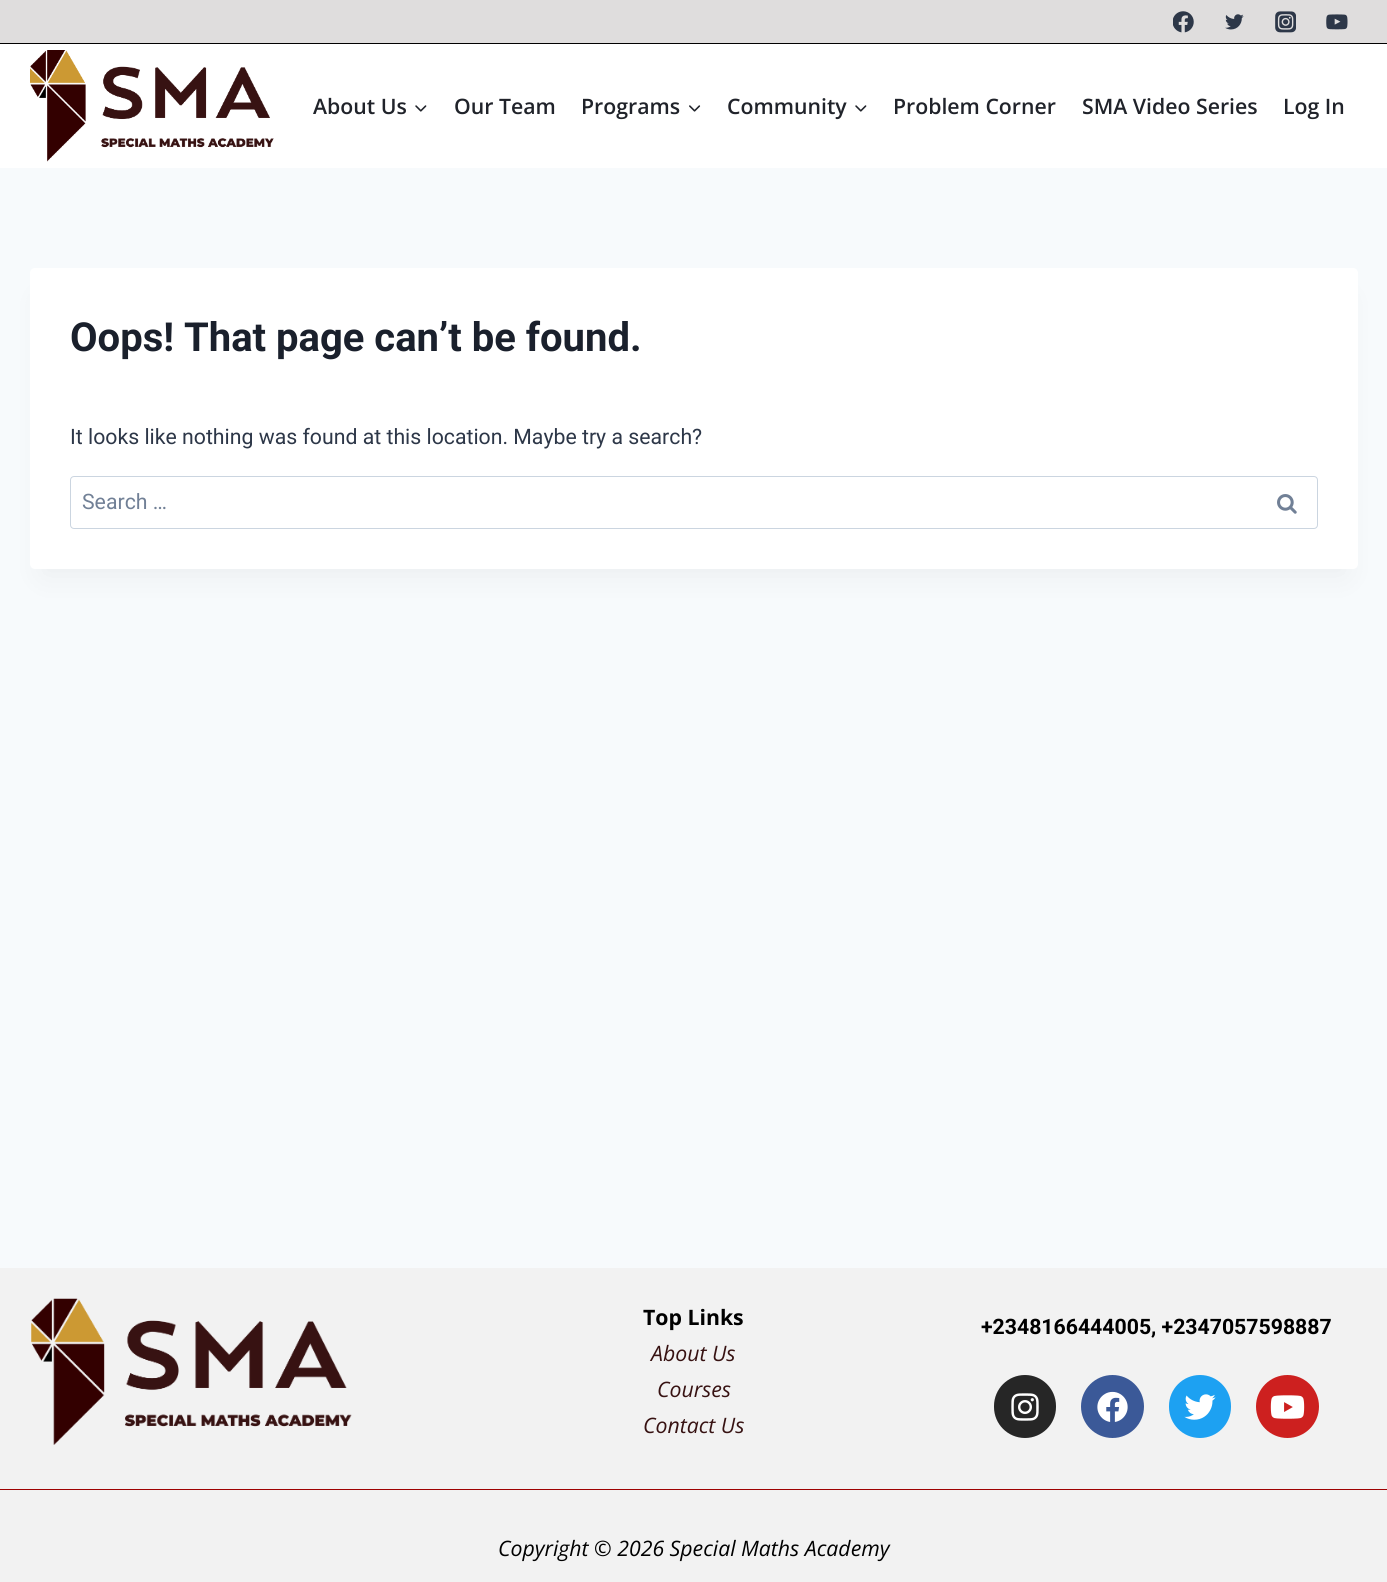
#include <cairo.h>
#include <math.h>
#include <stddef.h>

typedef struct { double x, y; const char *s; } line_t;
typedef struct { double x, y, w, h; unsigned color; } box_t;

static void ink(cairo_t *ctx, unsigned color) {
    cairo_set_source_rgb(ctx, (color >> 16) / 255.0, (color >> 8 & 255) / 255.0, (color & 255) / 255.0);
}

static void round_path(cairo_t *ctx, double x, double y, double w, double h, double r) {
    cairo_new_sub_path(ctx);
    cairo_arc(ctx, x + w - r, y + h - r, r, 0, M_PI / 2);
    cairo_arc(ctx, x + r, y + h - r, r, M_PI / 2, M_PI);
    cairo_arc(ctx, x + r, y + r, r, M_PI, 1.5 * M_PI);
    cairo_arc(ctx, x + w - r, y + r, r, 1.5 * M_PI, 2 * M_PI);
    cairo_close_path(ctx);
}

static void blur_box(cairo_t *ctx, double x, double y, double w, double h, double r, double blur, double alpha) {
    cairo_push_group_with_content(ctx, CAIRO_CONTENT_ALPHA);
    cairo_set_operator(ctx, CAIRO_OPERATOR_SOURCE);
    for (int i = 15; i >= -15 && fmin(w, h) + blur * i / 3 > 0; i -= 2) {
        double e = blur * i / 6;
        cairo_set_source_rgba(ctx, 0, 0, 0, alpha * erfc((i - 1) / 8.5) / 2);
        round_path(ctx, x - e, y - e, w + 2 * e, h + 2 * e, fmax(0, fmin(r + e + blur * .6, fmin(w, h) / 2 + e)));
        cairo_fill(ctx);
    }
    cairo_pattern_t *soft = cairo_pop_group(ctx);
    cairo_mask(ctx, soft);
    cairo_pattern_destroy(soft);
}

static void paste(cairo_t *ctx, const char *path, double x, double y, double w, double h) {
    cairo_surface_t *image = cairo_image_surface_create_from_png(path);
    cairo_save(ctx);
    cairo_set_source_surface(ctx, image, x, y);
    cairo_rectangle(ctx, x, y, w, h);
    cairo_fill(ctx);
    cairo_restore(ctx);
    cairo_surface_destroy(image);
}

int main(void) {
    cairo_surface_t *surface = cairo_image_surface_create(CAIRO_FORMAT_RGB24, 1387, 1582);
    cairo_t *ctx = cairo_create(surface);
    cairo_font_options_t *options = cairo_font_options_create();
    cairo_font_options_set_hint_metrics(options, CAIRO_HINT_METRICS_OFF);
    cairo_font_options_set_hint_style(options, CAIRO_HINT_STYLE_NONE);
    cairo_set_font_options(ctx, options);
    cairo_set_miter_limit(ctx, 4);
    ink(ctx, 0xF7FAFC);
    cairo_paint(ctx);
    {
        static const box_t items[] = {
            {0, 44, 1387, 124, 0xFFFFFF},
            {0, 0, 1387, 43, 0xDFDDDD},
            {0, 43, 1387, 1, 0x000000},
        };
        for (size_t i = 0; i < sizeof items / sizeof *items; i++) {
            ink(ctx, items[i].color);
            cairo_rectangle(ctx, items[i].x, items[i].y, items[i].w, items[i].h);
            cairo_fill(ctx);
        }
    }
    paste(ctx, "media/1.png", 1173, 11, 21, 22);
    paste(ctx, "media/2.png", 1225, 14, 19, 16);
    paste(ctx, "media/3.png", 1275, 11, 21, 22);
    paste(ctx, "media/4.png", 1326, 14, 22, 16);
    paste(ctx, "media/5.png", 30, 50, 244, 112);
    cairo_select_font_face(ctx, "Open Sans SemiBold", CAIRO_FONT_SLANT_NORMAL, CAIRO_FONT_WEIGHT_NORMAL);
    cairo_set_font_size(ctx, 21.25);
    ink(ctx, 0x20232A);
    cairo_move_to(ctx, 313, 114);
    cairo_show_text(ctx, "About Us");
    paste(ctx, "media/6.png", 415, 105, 12, 7);
    cairo_move_to(ctx, 454, 114);
    cairo_show_text(ctx, "Our Team");
    cairo_move_to(ctx, 581, 114);
    cairo_show_text(ctx, "Programs");
    paste(ctx, "media/7.png", 689, 105, 12, 7);
    cairo_move_to(ctx, 727, 114);
    cairo_show_text(ctx, "Community");
    paste(ctx, "media/6.png", 855, 105, 12, 7);
    {
        static const line_t items[] = {
            {893, 114, "Problem Corner"},
            {1082, 114, "SMA Video Series"},
            {1283, 114, "Log In"},
        };
        for (size_t i = 0; i < sizeof items / sizeof *items; i++) {
            cairo_move_to(ctx, items[i].x, items[i].y);
            cairo_show_text(ctx, items[i].s);
        }
    }
    ink(ctx, 0x000000);
    blur_box(ctx, 43, 299, 1302, 276, 0, 15.5, 0.05);
    ink(ctx, 0xFFFFFF);
    round_path(ctx, 30, 268, 1328, 301, 5);
    cairo_fill(ctx);
    cairo_select_font_face(ctx, "Roboto", CAIRO_FONT_SLANT_NORMAL, CAIRO_FONT_WEIGHT_BOLD);
    cairo_set_font_size(ctx, 40);
    ink(ctx, 0x1A202C);
    cairo_move_to(ctx, 70, 351);
    cairo_show_text(ctx, "Oops! That page can’t be found.");
    cairo_select_font_face(ctx, "Roboto", CAIRO_FONT_SLANT_NORMAL, CAIRO_FONT_WEIGHT_NORMAL);
    cairo_set_font_size(ctx, 21.25);
    ink(ctx, 0x2D3748);
    cairo_move_to(ctx, 70, 444);
    cairo_show_text(ctx, "It looks like nothing was found at this location. Maybe try a search?");
    round_path(ctx, 70.5, 476.5, 1247, 52, 3.5);
    ink(ctx, 0xCBD5E0);
    cairo_set_line_width(ctx, 1);
    cairo_stroke(ctx);
    ink(ctx, 0x718096);
    cairo_move_to(ctx, 82, 509);
    cairo_show_text(ctx, "Search …");
    paste(ctx, "media/8.png", 1277, 494, 20, 20);
    ink(ctx, 0xF2F2F2);
    cairo_rectangle(ctx, 0, 1268, 1387, 314);
    cairo_fill(ctx);
    paste(ctx, "media/9.png", 31, 1298, 321, 147);
    cairo_select_font_face(ctx, "Open Sans", CAIRO_FONT_SLANT_NORMAL, CAIRO_FONT_WEIGHT_BOLD);
    ink(ctx, 0x000000);
    cairo_move_to(ctx, 643, 1325);
    cairo_show_text(ctx, "Top Links");
    cairo_select_font_face(ctx, "Open Sans", CAIRO_FONT_SLANT_ITALIC, CAIRO_FONT_WEIGHT_NORMAL);
    ink(ctx, 0x371212);
    {
        static const line_t items[] = {
            {651, 1361, "About Us"},
            {657, 1397, "Courses"},
            {643, 1433, "Contact Us"},
        };
        for (size_t i = 0; i < sizeof items / sizeof *items; i++) {
            cairo_move_to(ctx, items[i].x, items[i].y);
            cairo_show_text(ctx, items[i].s);
        }
    }
    cairo_select_font_face(ctx, "Roboto", CAIRO_FONT_SLANT_NORMAL, CAIRO_FONT_WEIGHT_BOLD);
    ink(ctx, 0x000000);
    cairo_move_to(ctx, 981, 1334);
    cairo_show_text(ctx, "+2348166444005, +2347057598887");
    ink(ctx, 0x262626);
    round_path(ctx, 994, 1375, 62, 63, 31);
    cairo_fill(ctx);
    paste(ctx, "media/10.png", 1011, 1393, 28, 28);
    ink(ctx, 0x3B5998);
    cairo_arc(ctx, 1112.5, 1406.5, 31.5, 0, 2 * M_PI);
    cairo_fill(ctx);
    paste(ctx, "media/11.png", 1097, 1391, 31, 31);
    ink(ctx, 0x1DA1F2);
    round_path(ctx, 1169, 1375, 62, 63, 31);
    cairo_fill(ctx);
    paste(ctx, "media/12.png", 1184, 1394, 32, 26);
    ink(ctx, 0xCD201F);
    cairo_arc(ctx, 1287.5, 1406.5, 31.5, 0, 2 * M_PI);
    cairo_fill(ctx);
    paste(ctx, "media/13.png", 1270, 1395, 35, 24);
    ink(ctx, 0x9E0101);
    cairo_rectangle(ctx, 0, 1489, 1387, 1);
    cairo_fill(ctx);
    cairo_select_font_face(ctx, "Open Sans", CAIRO_FONT_SLANT_ITALIC, CAIRO_FONT_WEIGHT_NORMAL);
    ink(ctx, 0x000000);
    cairo_move_to(ctx, 498, 1556);
    cairo_show_text(ctx, "Copyright © 2026 Special Maths Academy");
    cairo_surface_write_to_png(surface, "image.png");
    cairo_font_options_destroy(options);
    cairo_destroy(ctx);
    cairo_surface_destroy(surface);
    return 0;
}
